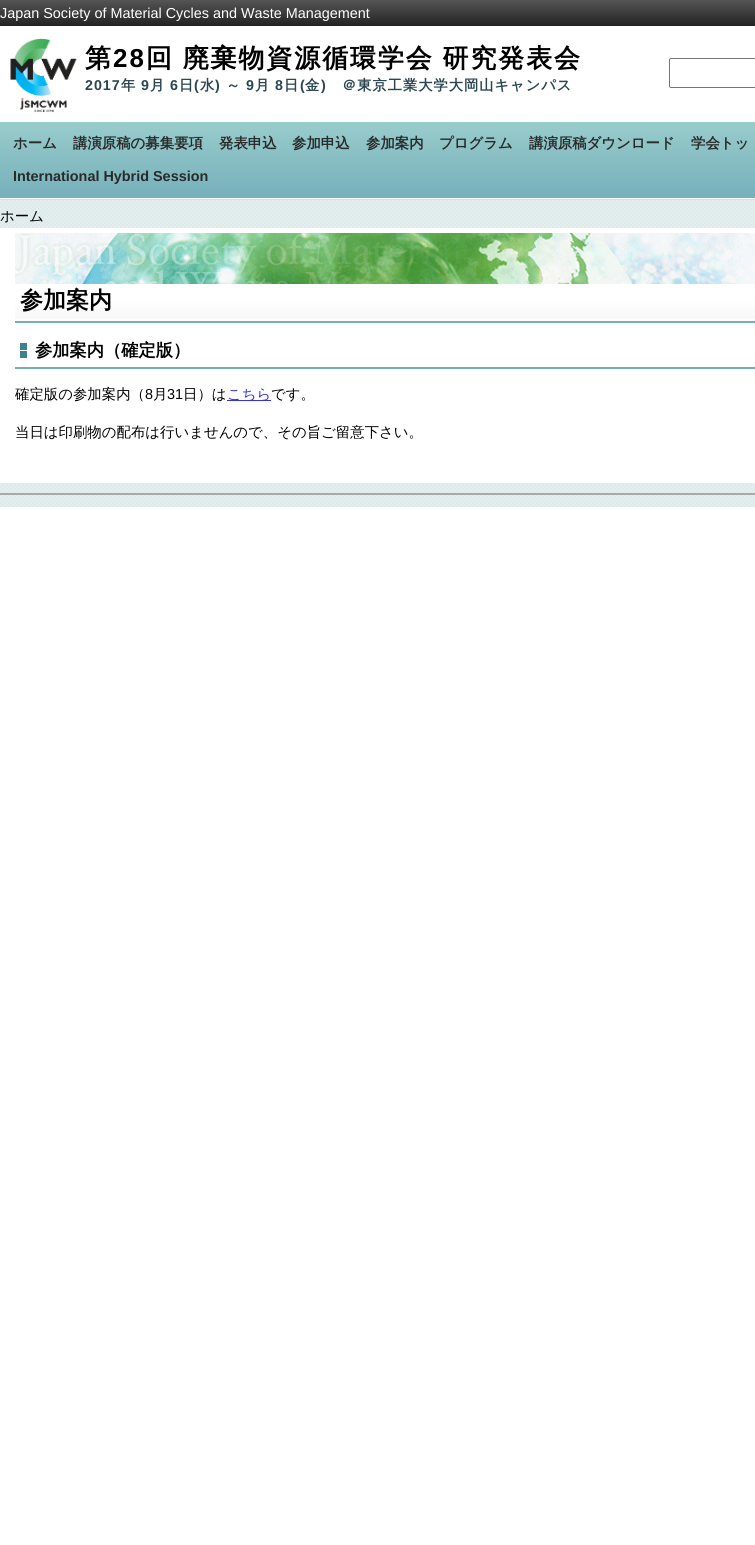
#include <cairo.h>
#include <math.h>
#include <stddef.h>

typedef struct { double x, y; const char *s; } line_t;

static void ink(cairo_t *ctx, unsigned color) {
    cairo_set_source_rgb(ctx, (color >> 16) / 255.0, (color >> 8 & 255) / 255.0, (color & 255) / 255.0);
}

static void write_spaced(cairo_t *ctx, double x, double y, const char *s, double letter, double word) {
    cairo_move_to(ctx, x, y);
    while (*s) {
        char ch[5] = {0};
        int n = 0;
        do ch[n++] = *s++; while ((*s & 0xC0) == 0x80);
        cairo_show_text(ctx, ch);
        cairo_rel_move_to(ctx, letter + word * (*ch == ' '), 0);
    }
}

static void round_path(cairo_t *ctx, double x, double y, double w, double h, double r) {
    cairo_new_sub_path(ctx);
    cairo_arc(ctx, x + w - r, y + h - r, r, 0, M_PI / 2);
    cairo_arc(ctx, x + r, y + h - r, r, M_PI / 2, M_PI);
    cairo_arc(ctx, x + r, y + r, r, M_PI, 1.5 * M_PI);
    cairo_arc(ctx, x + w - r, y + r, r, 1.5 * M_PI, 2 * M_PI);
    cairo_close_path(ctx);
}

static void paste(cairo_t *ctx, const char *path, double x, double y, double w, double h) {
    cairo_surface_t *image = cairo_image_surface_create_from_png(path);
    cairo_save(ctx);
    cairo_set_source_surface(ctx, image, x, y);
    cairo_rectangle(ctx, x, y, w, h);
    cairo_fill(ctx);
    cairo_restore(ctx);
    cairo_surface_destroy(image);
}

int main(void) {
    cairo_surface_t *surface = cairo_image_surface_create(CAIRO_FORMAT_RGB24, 755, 1545);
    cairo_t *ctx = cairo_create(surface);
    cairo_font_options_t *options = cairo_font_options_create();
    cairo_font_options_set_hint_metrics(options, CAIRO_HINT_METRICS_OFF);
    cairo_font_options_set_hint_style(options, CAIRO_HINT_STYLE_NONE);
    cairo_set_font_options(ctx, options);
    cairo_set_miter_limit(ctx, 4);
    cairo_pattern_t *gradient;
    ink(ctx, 0xFFFFFF);
    cairo_paint(ctx);
    gradient = cairo_pattern_create_linear(378, 0, 378, 26);
    cairo_pattern_add_color_stop_rgba(gradient, 0, 0.333, 0.333, 0.333, 1);
    cairo_pattern_add_color_stop_rgba(gradient, 1, 0.137, 0.137, 0.137, 1);
    cairo_set_source(ctx, gradient);
    cairo_pattern_destroy(gradient);
    cairo_rectangle(ctx, 0, 0, 755, 26);
    cairo_fill(ctx);
    cairo_select_font_face(ctx, "Liberation Sans", CAIRO_FONT_SLANT_NORMAL, CAIRO_FONT_WEIGHT_NORMAL);
    cairo_set_font_size(ctx, 14.4);
    ink(ctx, 0xFFFFFF);
    cairo_move_to(ctx, 0, 18);
    cairo_show_text(ctx, "Japan Society of Material Cycles and Waste Management");
    paste(ctx, "media/1.png", 10, 38, 67, 75);
    cairo_select_font_face(ctx, "WenQuanYi Zen Hei", CAIRO_FONT_SLANT_NORMAL, CAIRO_FONT_WEIGHT_BOLD);
    cairo_set_font_size(ctx, 25.9);
    ink(ctx, 0x000000);
    write_spaced(ctx, 85, 67, "第", 2, 0);
    cairo_select_font_face(ctx, "Liberation Sans", CAIRO_FONT_SLANT_NORMAL, CAIRO_FONT_WEIGHT_BOLD);
    write_spaced(ctx, 113, 67, "28", 2, 0);
    cairo_select_font_face(ctx, "WenQuanYi Zen Hei", CAIRO_FONT_SLANT_NORMAL, CAIRO_FONT_WEIGHT_BOLD);
    write_spaced(ctx, 146, 67, "回 廃棄物資源循環学会 研究発表会", 2, -1);
    cairo_select_font_face(ctx, "Liberation Sans", CAIRO_FONT_SLANT_NORMAL, CAIRO_FONT_WEIGHT_BOLD);
    cairo_set_font_size(ctx, 14.25);
    ink(ctx, 0x2A4650);
    write_spaced(ctx, 85, 90, "2017", 1, 0);
    cairo_select_font_face(ctx, "WenQuanYi Zen Hei", CAIRO_FONT_SLANT_NORMAL, CAIRO_FONT_WEIGHT_BOLD);
    write_spaced(ctx, 121, 90, "年", 1, 0);
    cairo_select_font_face(ctx, "Liberation Sans", CAIRO_FONT_SLANT_NORMAL, CAIRO_FONT_WEIGHT_BOLD);
    write_spaced(ctx, 141, 90, "9", 1, 0);
    cairo_select_font_face(ctx, "WenQuanYi Zen Hei", CAIRO_FONT_SLANT_NORMAL, CAIRO_FONT_WEIGHT_BOLD);
    write_spaced(ctx, 150, 90, "月", 1, 0);
    cairo_select_font_face(ctx, "Liberation Sans", CAIRO_FONT_SLANT_NORMAL, CAIRO_FONT_WEIGHT_BOLD);
    write_spaced(ctx, 170, 90, "6", 1, 0);
    cairo_select_font_face(ctx, "WenQuanYi Zen Hei", CAIRO_FONT_SLANT_NORMAL, CAIRO_FONT_WEIGHT_BOLD);
    write_spaced(ctx, 179, 90, "日", 1, 0);
    cairo_select_font_face(ctx, "Liberation Sans", CAIRO_FONT_SLANT_NORMAL, CAIRO_FONT_WEIGHT_BOLD);
    write_spaced(ctx, 194, 90, "(", 1, 0);
    cairo_select_font_face(ctx, "WenQuanYi Zen Hei", CAIRO_FONT_SLANT_NORMAL, CAIRO_FONT_WEIGHT_BOLD);
    write_spaced(ctx, 200, 90, "水", 1, 0);
    cairo_select_font_face(ctx, "Liberation Sans", CAIRO_FONT_SLANT_NORMAL, CAIRO_FONT_WEIGHT_BOLD);
    write_spaced(ctx, 215, 90, ")", 1, 0);
    cairo_select_font_face(ctx, "WenQuanYi Zen Hei", CAIRO_FONT_SLANT_NORMAL, CAIRO_FONT_WEIGHT_BOLD);
    write_spaced(ctx, 226, 90, "～", 1, 0);
    cairo_select_font_face(ctx, "Liberation Sans", CAIRO_FONT_SLANT_NORMAL, CAIRO_FONT_WEIGHT_BOLD);
    write_spaced(ctx, 246, 90, "9", 1, 0);
    cairo_select_font_face(ctx, "WenQuanYi Zen Hei", CAIRO_FONT_SLANT_NORMAL, CAIRO_FONT_WEIGHT_BOLD);
    write_spaced(ctx, 255, 90, "月", 1, 0);
    cairo_select_font_face(ctx, "Liberation Sans", CAIRO_FONT_SLANT_NORMAL, CAIRO_FONT_WEIGHT_BOLD);
    write_spaced(ctx, 275, 90, "8", 1, 0);
    cairo_select_font_face(ctx, "WenQuanYi Zen Hei", CAIRO_FONT_SLANT_NORMAL, CAIRO_FONT_WEIGHT_BOLD);
    write_spaced(ctx, 284, 90, "日", 1, 0);
    cairo_select_font_face(ctx, "Liberation Sans", CAIRO_FONT_SLANT_NORMAL, CAIRO_FONT_WEIGHT_BOLD);
    write_spaced(ctx, 300, 90, "(", 1, 0);
    cairo_select_font_face(ctx, "WenQuanYi Zen Hei", CAIRO_FONT_SLANT_NORMAL, CAIRO_FONT_WEIGHT_BOLD);
    write_spaced(ctx, 305, 90, "金", 1, 0);
    cairo_select_font_face(ctx, "Liberation Sans", CAIRO_FONT_SLANT_NORMAL, CAIRO_FONT_WEIGHT_BOLD);
    write_spaced(ctx, 321, 90, ")", 1, 0);
    cairo_select_font_face(ctx, "WenQuanYi Zen Hei", CAIRO_FONT_SLANT_NORMAL, CAIRO_FONT_WEIGHT_BOLD);
    write_spaced(ctx, 342, 90, "＠東京工業大学大岡山キャンパス", 1, 0);
    round_path(ctx, 669.5, 58.5, 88, 29, 1.5);
    ink(ctx, 0x767676);
    cairo_set_line_width(ctx, 1);
    cairo_stroke(ctx);
    gradient = cairo_pattern_create_linear(378, 122, 378, 198);
    cairo_pattern_add_color_stop_rgba(gradient, 0, 0.6, 0.8, 0.8, 1);
    cairo_pattern_add_color_stop_rgba(gradient, 1, 0.463, 0.69, 0.733, 1);
    cairo_set_source(ctx, gradient);
    cairo_pattern_destroy(gradient);
    cairo_rectangle(ctx, 0, 122, 755, 76);
    cairo_fill(ctx);
    cairo_set_font_size(ctx, 14.4);
    ink(ctx, 0x292A2A);
    {
        static const line_t items[] = {
            {13, 148, "ホーム"},
            {73, 148, "講演原稿の募集要項"},
            {219, 148, "発表申込"},
            {292, 148, "参加申込"},
            {366, 148, "参加案内"},
            {439, 148, "プログラム"},
            {529, 148, "講演原稿ダウンロード"},
            {691, 148, "学会トッ"},
        };
        for (size_t i = 0; i < sizeof items / sizeof *items; i++) {
            cairo_move_to(ctx, items[i].x, items[i].y);
            cairo_show_text(ctx, items[i].s);
        }
    }
    cairo_select_font_face(ctx, "Liberation Sans", CAIRO_FONT_SLANT_NORMAL, CAIRO_FONT_WEIGHT_BOLD);
    cairo_move_to(ctx, 13, 181);
    cairo_show_text(ctx, "International Hybrid Session");
    paste(ctx, "media/2.png", 0, 200, 755, 307);
    ink(ctx, 0xDDDDDD);
    cairo_rectangle(ctx, 0, 199, 755, 1);
    cairo_fill(ctx);
    cairo_select_font_face(ctx, "WenQuanYi Zen Hei Medium", CAIRO_FONT_SLANT_NORMAL, CAIRO_FONT_WEIGHT_NORMAL);
    ink(ctx, 0x000000);
    cairo_move_to(ctx, 0, 221);
    cairo_show_text(ctx, "ホーム");
    ink(ctx, 0xFFFFFF);
    cairo_rectangle(ctx, 0, 228, 755, 255);
    cairo_fill(ctx);
    paste(ctx, "media/3.png", 15, 233, 740, 51);
    paste(ctx, "media/4.png", 15, 284, 740, 35);
    ink(ctx, 0x73AFB9);
    cairo_rectangle(ctx, 15, 321, 740, 2);
    cairo_fill(ctx);
    cairo_select_font_face(ctx, "WenQuanYi Zen Hei", CAIRO_FONT_SLANT_NORMAL, CAIRO_FONT_WEIGHT_BOLD);
    cairo_set_font_size(ctx, 23);
    ink(ctx, 0x000000);
    cairo_move_to(ctx, 20, 308);
    cairo_show_text(ctx, "参加案内");
    paste(ctx, "media/5.png", 20, 343, 7, 15);
    ink(ctx, 0x73AFB9);
    cairo_rectangle(ctx, 15, 367, 740, 2);
    cairo_fill(ctx);
    cairo_set_font_size(ctx, 17.25);
    ink(ctx, 0x000000);
    cairo_move_to(ctx, 35, 356);
    cairo_show_text(ctx, "参加案内（確定版）");
    cairo_select_font_face(ctx, "WenQuanYi Zen Hei Medium", CAIRO_FONT_SLANT_NORMAL, CAIRO_FONT_WEIGHT_NORMAL);
    cairo_set_font_size(ctx, 14.4);
    cairo_move_to(ctx, 15, 399);
    cairo_show_text(ctx, "確定版の参加案内（");
    cairo_select_font_face(ctx, "Liberation Sans", CAIRO_FONT_SLANT_NORMAL, CAIRO_FONT_WEIGHT_NORMAL);
    cairo_move_to(ctx, 145, 399);
    cairo_show_text(ctx, "8");
    cairo_select_font_face(ctx, "WenQuanYi Zen Hei Medium", CAIRO_FONT_SLANT_NORMAL, CAIRO_FONT_WEIGHT_NORMAL);
    cairo_move_to(ctx, 153, 399);
    cairo_show_text(ctx, "月");
    cairo_select_font_face(ctx, "Liberation Sans", CAIRO_FONT_SLANT_NORMAL, CAIRO_FONT_WEIGHT_NORMAL);
    cairo_move_to(ctx, 167, 399);
    cairo_show_text(ctx, "31");
    cairo_select_font_face(ctx, "WenQuanYi Zen Hei Medium", CAIRO_FONT_SLANT_NORMAL, CAIRO_FONT_WEIGHT_NORMAL);
    cairo_move_to(ctx, 183, 399);
    cairo_show_text(ctx, "日）は");
    ink(ctx, 0x3333DD);
    cairo_rectangle(ctx, 227, 400, 44, 1);
    cairo_fill(ctx);
    cairo_move_to(ctx, 227, 399);
    cairo_show_text(ctx, "こちら");
    ink(ctx, 0x000000);
    cairo_move_to(ctx, 271, 399);
    cairo_show_text(ctx, "です。");
    cairo_move_to(ctx, 15, 437);
    cairo_show_text(ctx, "当日は印刷物の配布は行いませんので、その旨ご留意下さい。");
    ink(ctx, 0xAAAAAA);
    cairo_rectangle(ctx, 0, 493, 755, 2);
    cairo_fill(ctx);
    cairo_surface_write_to_png(surface, "image.png");
    cairo_font_options_destroy(options);
    cairo_destroy(ctx);
    cairo_surface_destroy(surface);
    return 0;
}
